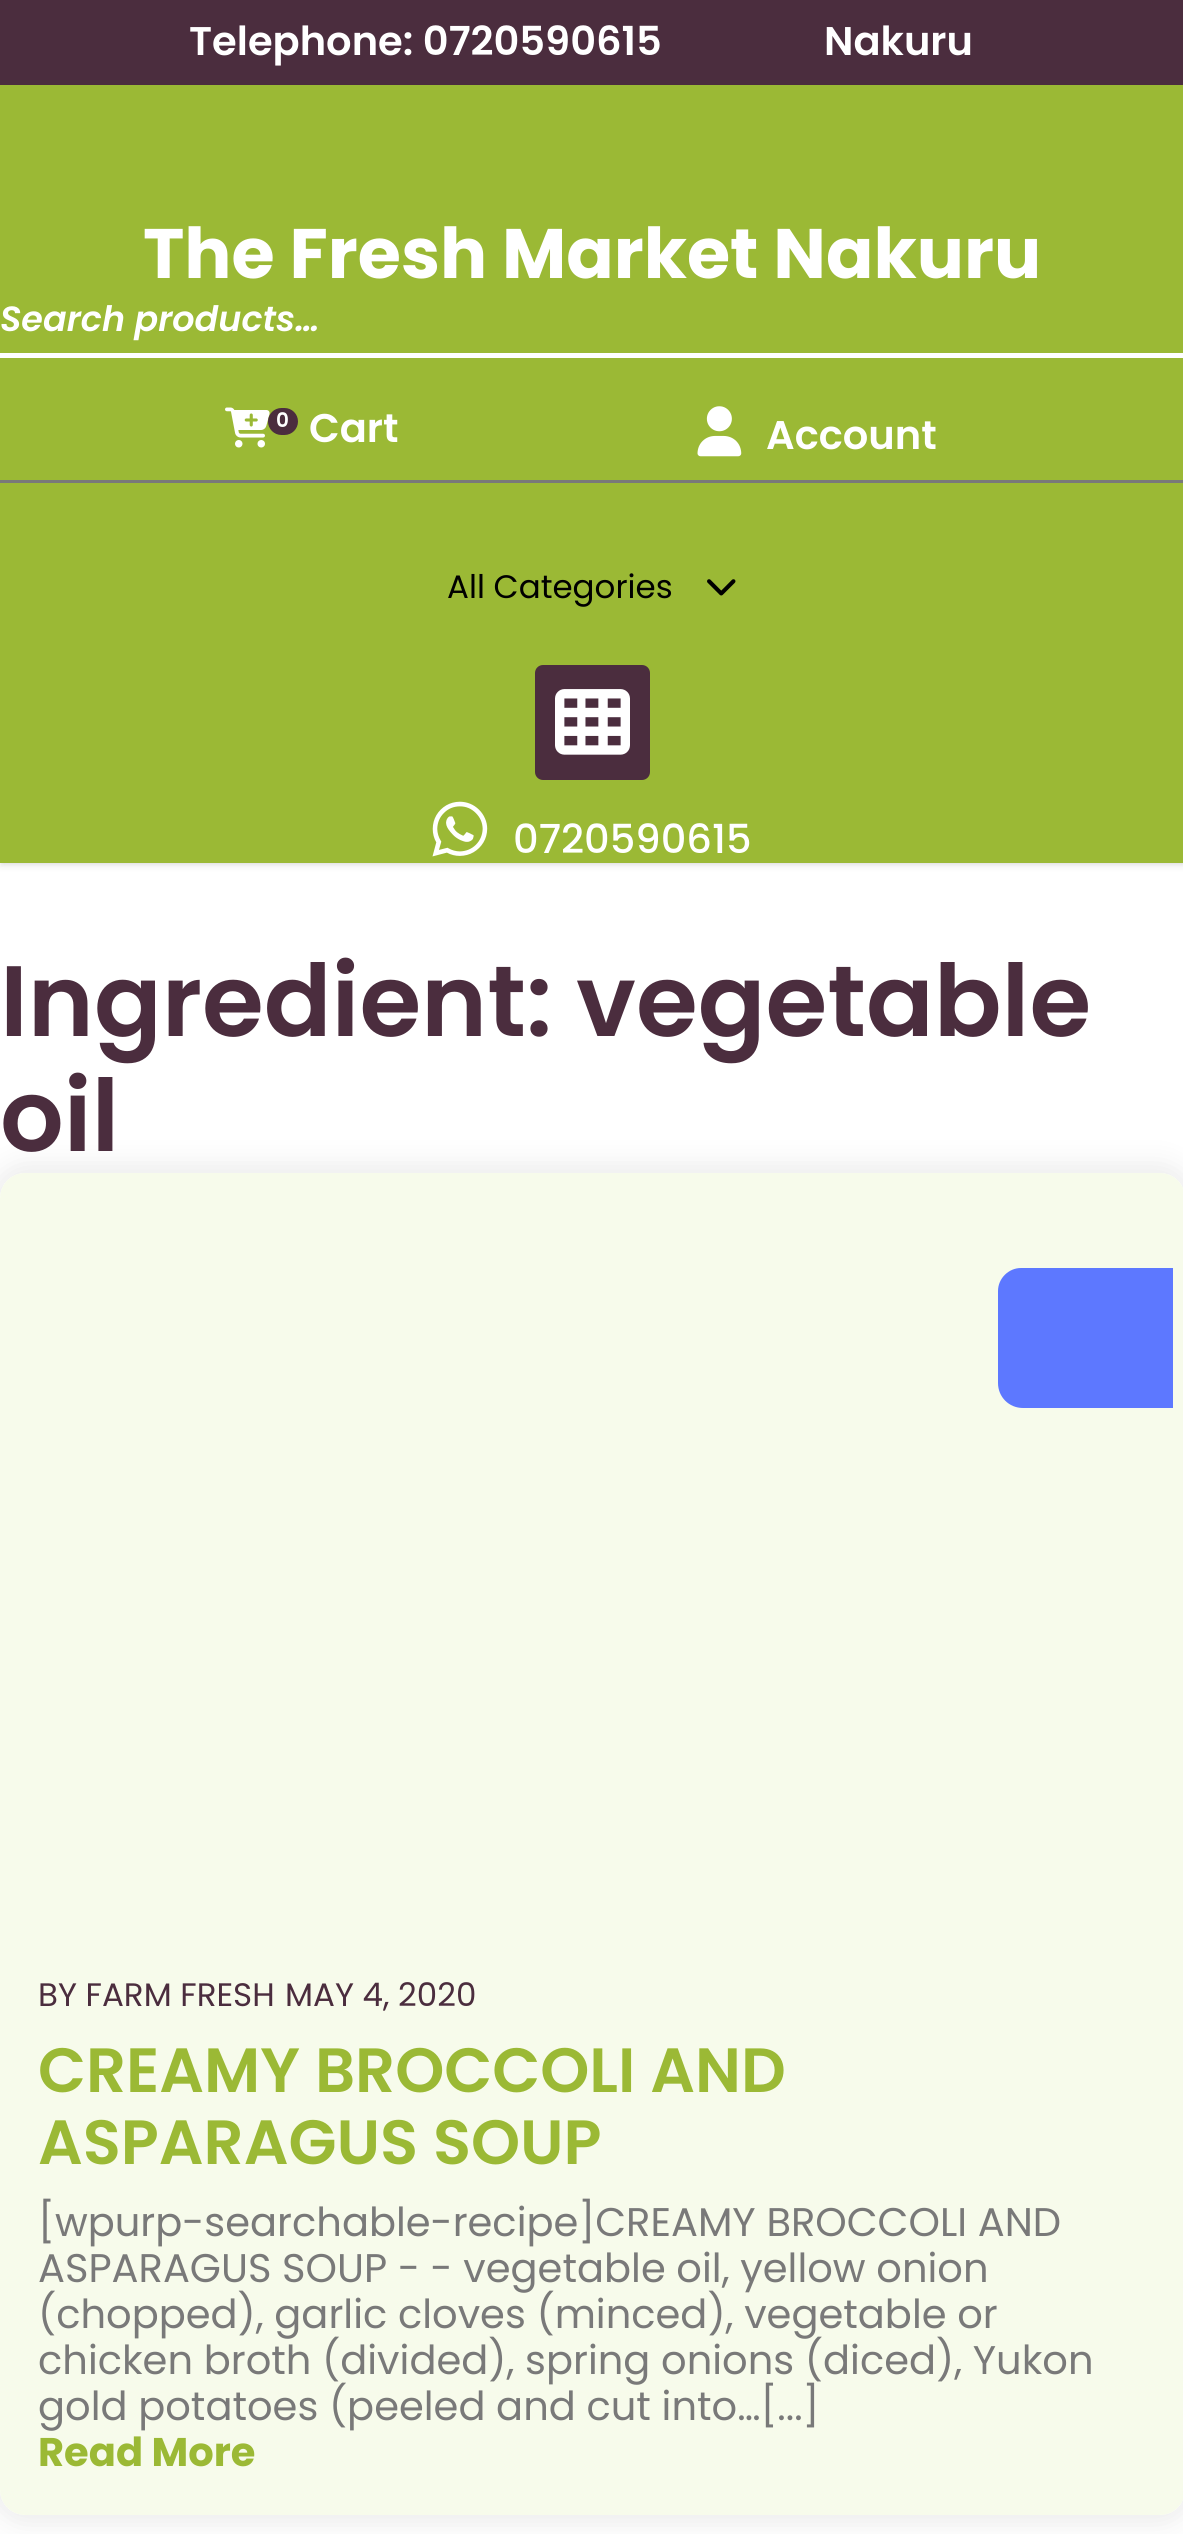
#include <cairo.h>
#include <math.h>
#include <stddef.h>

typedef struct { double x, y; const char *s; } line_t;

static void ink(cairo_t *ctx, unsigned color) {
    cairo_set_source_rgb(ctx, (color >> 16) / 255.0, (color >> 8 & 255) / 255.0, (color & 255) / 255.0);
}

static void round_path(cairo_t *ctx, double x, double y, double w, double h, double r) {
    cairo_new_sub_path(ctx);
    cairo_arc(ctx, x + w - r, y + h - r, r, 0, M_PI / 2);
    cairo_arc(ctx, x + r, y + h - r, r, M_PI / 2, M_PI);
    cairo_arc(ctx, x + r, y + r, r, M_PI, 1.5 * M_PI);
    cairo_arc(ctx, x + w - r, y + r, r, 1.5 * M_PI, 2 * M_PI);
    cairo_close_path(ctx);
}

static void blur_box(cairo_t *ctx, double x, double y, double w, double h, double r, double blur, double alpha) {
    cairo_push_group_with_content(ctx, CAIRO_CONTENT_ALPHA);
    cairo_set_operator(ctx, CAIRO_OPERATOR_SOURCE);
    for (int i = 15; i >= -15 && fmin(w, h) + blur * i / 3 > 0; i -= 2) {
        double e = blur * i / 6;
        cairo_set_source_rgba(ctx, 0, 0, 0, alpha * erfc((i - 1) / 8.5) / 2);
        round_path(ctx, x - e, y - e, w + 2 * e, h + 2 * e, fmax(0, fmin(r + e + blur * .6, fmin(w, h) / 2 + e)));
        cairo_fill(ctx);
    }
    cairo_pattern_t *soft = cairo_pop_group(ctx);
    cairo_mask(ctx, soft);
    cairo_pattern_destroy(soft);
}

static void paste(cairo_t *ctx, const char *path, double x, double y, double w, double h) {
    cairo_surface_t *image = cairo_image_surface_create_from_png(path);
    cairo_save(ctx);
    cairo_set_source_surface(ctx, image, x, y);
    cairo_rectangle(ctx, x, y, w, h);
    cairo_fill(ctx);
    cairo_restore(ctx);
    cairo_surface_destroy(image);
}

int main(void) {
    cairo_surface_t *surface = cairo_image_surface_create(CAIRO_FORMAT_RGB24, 1183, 2534);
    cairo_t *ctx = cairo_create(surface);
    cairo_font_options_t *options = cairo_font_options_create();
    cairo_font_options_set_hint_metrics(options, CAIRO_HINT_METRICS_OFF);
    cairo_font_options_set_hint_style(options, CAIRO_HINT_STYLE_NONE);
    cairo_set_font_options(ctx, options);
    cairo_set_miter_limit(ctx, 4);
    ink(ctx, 0xFFFFFF);
    cairo_paint(ctx);
    ink(ctx, 0x000000);
    blur_box(ctx, 3, 5, 1180, 858, 0, 2.5, 0.1);
    blur_box(ctx, 0, 3, 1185, 862, 0, 4, 0.1);
    ink(ctx, 0x4B2D3E);
    cairo_rectangle(ctx, 0, 0, 1183, 85);
    cairo_fill(ctx);
    cairo_select_font_face(ctx, "Poppins SemiBold", CAIRO_FONT_SLANT_NORMAL, CAIRO_FONT_WEIGHT_NORMAL);
    cairo_set_font_size(ctx, 40);
    ink(ctx, 0xFFFFFF);
    cairo_move_to(ctx, 189, 55);
    cairo_show_text(ctx, "Telephone: 0720590615");
    cairo_move_to(ctx, 824, 55);
    cairo_show_text(ctx, "Nakuru");
    ink(ctx, 0x9BB935);
    cairo_rectangle(ctx, 0, 85, 1183, 778);
    cairo_fill(ctx);
    cairo_select_font_face(ctx, "Poppins", CAIRO_FONT_SLANT_NORMAL, CAIRO_FONT_WEIGHT_BOLD);
    cairo_set_font_size(ctx, 70);
    ink(ctx, 0xFFFFFF);
    cairo_move_to(ctx, 143, 278);
    cairo_show_text(ctx, "The Fresh Market Nakuru");
    cairo_rectangle(ctx, 0, 353, 1183, 5);
    cairo_fill(ctx);
    cairo_select_font_face(ctx, "Poppins SemiBold", CAIRO_FONT_SLANT_ITALIC, CAIRO_FONT_WEIGHT_NORMAL);
    cairo_set_font_size(ctx, 35);
    cairo_move_to(ctx, 0, 331);
    cairo_show_text(ctx, "Search products…");
    paste(ctx, "media/1.png", 225, 407, 45, 41);
    ink(ctx, 0x4B2D3E);
    round_path(ctx, 268, 408, 30, 27, 13.5);
    cairo_fill(ctx);
    cairo_select_font_face(ctx, "Poppins SemiBold", CAIRO_FONT_SLANT_NORMAL, CAIRO_FONT_WEIGHT_NORMAL);
    cairo_set_font_size(ctx, 20);
    ink(ctx, 0xFFFFFF);
    cairo_move_to(ctx, 276, 427);
    cairo_show_text(ctx, "0");
    cairo_set_font_size(ctx, 40);
    cairo_move_to(ctx, 309, 442);
    cairo_show_text(ctx, "Cart");
    paste(ctx, "media/2.png", 697, 406, 45, 51);
    cairo_move_to(ctx, 766, 449);
    cairo_show_text(ctx, "Account");
    ink(ctx, 0x797979);
    cairo_rectangle(ctx, 0, 480, 1183, 3);
    cairo_fill(ctx);
    cairo_select_font_face(ctx, "Poppins", CAIRO_FONT_SLANT_NORMAL, CAIRO_FONT_WEIGHT_NORMAL);
    cairo_set_font_size(ctx, 32.5);
    ink(ctx, 0x000000);
    cairo_move_to(ctx, 447, 598);
    cairo_show_text(ctx, "All Categories");
    paste(ctx, "media/3.png", 707, 579, 29, 17);
    ink(ctx, 0x4B2D3E);
    round_path(ctx, 535, 665, 115, 115, 8);
    cairo_fill(ctx);
    paste(ctx, "media/4.png", 555, 689, 75, 66);
    paste(ctx, "media/5.png", 432, 801, 56, 56);
    cairo_select_font_face(ctx, "Poppins Medium", CAIRO_FONT_SLANT_NORMAL, CAIRO_FONT_WEIGHT_NORMAL);
    cairo_set_font_size(ctx, 40);
    ink(ctx, 0xFFFFFF);
    cairo_move_to(ctx, 513, 853);
    cairo_show_text(ctx, "0720590615");
    cairo_select_font_face(ctx, "Poppins SemiBold", CAIRO_FONT_SLANT_NORMAL, CAIRO_FONT_WEIGHT_NORMAL);
    cairo_set_font_size(ctx, 100);
    ink(ctx, 0x4B2D3E);
    cairo_move_to(ctx, 0, 1036);
    cairo_show_text(ctx, "Ingredient: vegetable");
    cairo_save(ctx);
    cairo_set_fill_rule(ctx, CAIRO_FILL_RULE_EVEN_ODD);
    cairo_new_path(ctx);
    cairo_move_to(ctx, 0, 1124);
    cairo_line_to(ctx, 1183, 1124);
    cairo_line_to(ctx, 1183, 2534);
    cairo_line_to(ctx, 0, 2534);
    cairo_close_path(ctx);
    cairo_move_to(ctx, 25, 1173);
    cairo_line_to(ctx, 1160, 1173);
    cairo_curve_to(ctx, 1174, 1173, 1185, 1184, 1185, 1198);
    cairo_line_to(ctx, 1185, 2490);
    cairo_curve_to(ctx, 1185, 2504, 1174, 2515, 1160, 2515);
    cairo_line_to(ctx, 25, 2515);
    cairo_curve_to(ctx, 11, 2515, 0, 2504, 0, 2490);
    cairo_line_to(ctx, 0, 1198);
    cairo_curve_to(ctx, 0, 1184, 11, 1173, 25, 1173);
    cairo_close_path(ctx);
    cairo_clip(ctx);
    ink(ctx, 0xEEEEEE);
    blur_box(ctx, -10, 1163, 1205, 1362, 35, 12.5, 1);
    cairo_restore(ctx);
    cairo_move_to(ctx, 0, 1151);
    cairo_show_text(ctx, "oil");
    cairo_set_source_rgba(ctx, 0.882, 0.933, 0.698, 0.26);
    round_path(ctx, 0, 1173, 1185, 1342, 25);
    cairo_fill(ctx);
    cairo_select_font_face(ctx, "Poppins", CAIRO_FONT_SLANT_NORMAL, CAIRO_FONT_WEIGHT_NORMAL);
    cairo_set_font_size(ctx, 32.5);
    ink(ctx, 0x4B2D3E);
    cairo_move_to(ctx, 38, 2006);
    cairo_show_text(ctx, "BY FARM FRESH");
    cairo_move_to(ctx, 285, 2006);
    cairo_show_text(ctx, "MAY 4, 2020");
    cairo_select_font_face(ctx, "Poppins SemiBold", CAIRO_FONT_SLANT_NORMAL, CAIRO_FONT_WEIGHT_NORMAL);
    cairo_set_font_size(ctx, 62.5);
    ink(ctx, 0x9BB935);
    cairo_move_to(ctx, 38, 2092);
    cairo_show_text(ctx, "CREAMY BROCCOLI AND");
    cairo_move_to(ctx, 38, 2164);
    cairo_show_text(ctx, "ASPARAGUS SOUP");
    cairo_select_font_face(ctx, "Poppins", CAIRO_FONT_SLANT_NORMAL, CAIRO_FONT_WEIGHT_NORMAL);
    cairo_set_font_size(ctx, 40);
    ink(ctx, 0x797979);
    {
        static const line_t items[] = {
            {38, 2236, "[wpurp-searchable-recipe]CREAMY BROCCOLI AND"},
            {38, 2282, "ASPARAGUS SOUP - - vegetable oil, yellow onion"},
            {38, 2328, "(chopped), garlic cloves (minced), vegetable or"},
            {38, 2374, "chicken broth (divided), spring onions (diced), Yukon"},
            {38, 2420, "gold potatoes (peeled and cut into…[...]"},
        };
        for (size_t i = 0; i < sizeof items / sizeof *items; i++) {
            cairo_move_to(ctx, items[i].x, items[i].y);
            cairo_show_text(ctx, items[i].s);
        }
    }
    cairo_select_font_face(ctx, "Poppins", CAIRO_FONT_SLANT_NORMAL, CAIRO_FONT_WEIGHT_BOLD);
    ink(ctx, 0x9BB935);
    cairo_move_to(ctx, 38, 2466);
    cairo_show_text(ctx, "Read More");
    ink(ctx, 0x5D78FF);
    cairo_new_path(ctx);
    cairo_move_to(ctx, 1021, 1268);
    cairo_line_to(ctx, 1173, 1268);
    cairo_line_to(ctx, 1173, 1408);
    cairo_line_to(ctx, 1023, 1408);
    cairo_curve_to(ctx, 1009, 1408, 998, 1397, 998, 1383);
    cairo_line_to(ctx, 998, 1291);
    cairo_curve_to(ctx, 998, 1278.5, 1008.5, 1268, 1021, 1268);
    cairo_close_path(ctx);
    cairo_fill(ctx);
    cairo_surface_write_to_png(surface, "image.png");
    cairo_font_options_destroy(options);
    cairo_destroy(ctx);
    cairo_surface_destroy(surface);
    return 0;
}
